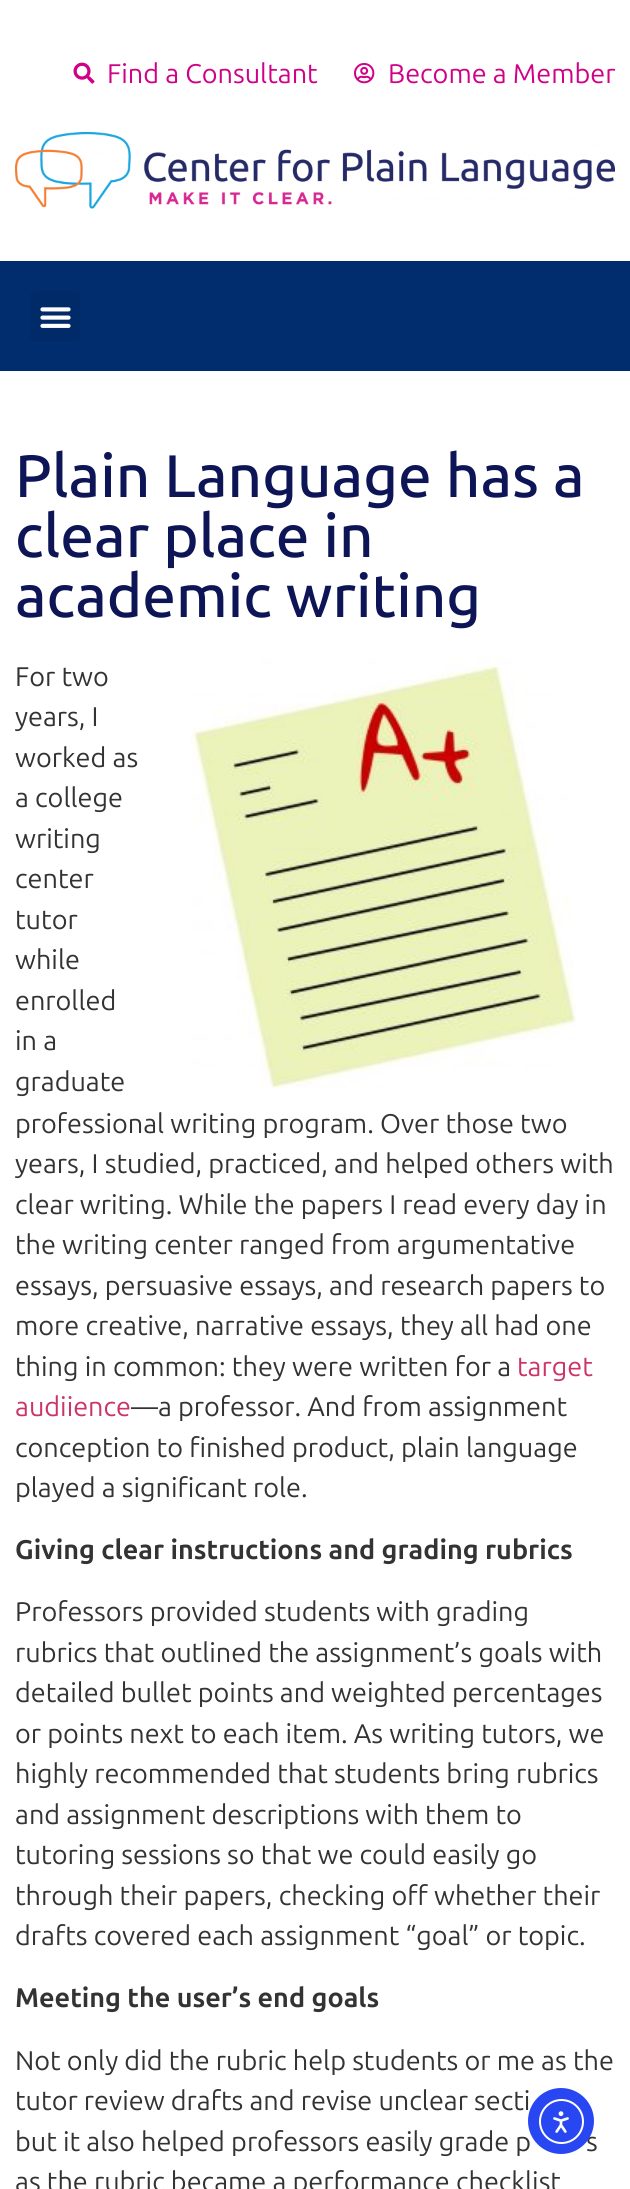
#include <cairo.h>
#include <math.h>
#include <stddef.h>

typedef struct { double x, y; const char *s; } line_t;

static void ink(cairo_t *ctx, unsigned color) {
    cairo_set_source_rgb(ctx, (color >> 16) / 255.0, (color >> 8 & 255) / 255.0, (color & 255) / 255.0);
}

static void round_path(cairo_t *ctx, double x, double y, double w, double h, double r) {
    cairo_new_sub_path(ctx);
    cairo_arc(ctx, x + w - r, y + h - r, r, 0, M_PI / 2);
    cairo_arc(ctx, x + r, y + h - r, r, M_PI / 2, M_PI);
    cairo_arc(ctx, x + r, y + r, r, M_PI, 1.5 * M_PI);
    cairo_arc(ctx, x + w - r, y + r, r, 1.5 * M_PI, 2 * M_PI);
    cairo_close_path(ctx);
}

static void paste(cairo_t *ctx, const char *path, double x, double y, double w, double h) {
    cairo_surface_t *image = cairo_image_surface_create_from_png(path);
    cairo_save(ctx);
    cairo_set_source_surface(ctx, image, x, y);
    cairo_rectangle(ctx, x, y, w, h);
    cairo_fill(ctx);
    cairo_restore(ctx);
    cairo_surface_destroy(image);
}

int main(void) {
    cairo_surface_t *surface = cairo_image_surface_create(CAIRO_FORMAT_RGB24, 630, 2189);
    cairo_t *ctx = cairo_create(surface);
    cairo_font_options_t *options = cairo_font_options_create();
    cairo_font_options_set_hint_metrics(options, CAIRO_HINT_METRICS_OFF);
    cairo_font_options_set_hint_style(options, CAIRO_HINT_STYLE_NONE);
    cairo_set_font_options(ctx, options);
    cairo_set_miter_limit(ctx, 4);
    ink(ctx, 0xFFFFFF);
    cairo_paint(ctx);
    paste(ctx, "media/1.png", 73, 62, 22, 22);
    cairo_select_font_face(ctx, "Ubuntu", CAIRO_FONT_SLANT_NORMAL, CAIRO_FONT_WEIGHT_NORMAL);
    cairo_set_font_size(ctx, 27);
    ink(ctx, 0xD00087);
    cairo_move_to(ctx, 107, 83);
    cairo_show_text(ctx, "Find a Consultant");
    paste(ctx, "media/2.png", 354, 63, 21, 21);
    cairo_move_to(ctx, 388, 83);
    cairo_show_text(ctx, "Become a Member");
    paste(ctx, "media/3.png", 15, 132, 600, 77);
    ink(ctx, 0x012C6D);
    cairo_rectangle(ctx, 0, 261, 630, 110);
    cairo_fill(ctx);
    ink(ctx, 0x012A68);
    round_path(ctx, 30, 291, 50, 50, 5);
    cairo_fill(ctx);
    paste(ctx, "media/4.png", 40, 307, 31, 21);
    cairo_select_font_face(ctx, "Ubuntu Medium", CAIRO_FONT_SLANT_NORMAL, CAIRO_FONT_WEIGHT_NORMAL);
    cairo_set_font_size(ctx, 60);
    ink(ctx, 0x0D1557);
    {
        static const line_t items[] = {
            {15, 497, "Plain Language has a"},
            {15, 557, "clear place in"},
            {15, 617, "academic writing"},
        };
        for (size_t i = 0; i < sizeof items / sizeof *items; i++) {
            cairo_move_to(ctx, items[i].x, items[i].y);
            cairo_show_text(ctx, items[i].s);
        }
    }
    cairo_select_font_face(ctx, "Ubuntu", CAIRO_FONT_SLANT_NORMAL, CAIRO_FONT_WEIGHT_NORMAL);
    cairo_set_font_size(ctx, 27);
    ink(ctx, 0x333333);
    cairo_move_to(ctx, 15, 686);
    cairo_show_text(ctx, "For two");
    paste(ctx, "media/5.png", 191, 655, 385, 434);
    {
        static const line_t items[] = {
            {15, 726, "years, I"},
            {15, 767, "worked as"},
            {15, 807, "a college"},
            {15, 848, "writing"},
            {15, 888, "center"},
            {15, 929, "tutor"},
            {15, 969, "while"},
            {15, 1010, "enrolled"},
            {15, 1050, "in a"},
            {15, 1091, "graduate"},
            {15, 1133, "professional writing program. Over those two"},
            {15, 1173, "years, I studied, practiced, and helped others with"},
            {15, 1214, "clear writing. While the papers I read every day in"},
            {15, 1254, "the writing center ranged from argumentative"},
            {15, 1295, "essays, persuasive essays, and research papers to"},
            {15, 1335, "more creative, narrative essays, they all had one"},
            {15, 1376, "thing in common: they were written for a"},
        };
        for (size_t i = 0; i < sizeof items / sizeof *items; i++) {
            cairo_move_to(ctx, items[i].x, items[i].y);
            cairo_show_text(ctx, items[i].s);
        }
    }
    ink(ctx, 0xCC3366);
    cairo_move_to(ctx, 517, 1376);
    cairo_show_text(ctx, "target");
    cairo_move_to(ctx, 15, 1416);
    cairo_show_text(ctx, "audiience");
    ink(ctx, 0x333333);
    {
        static const line_t items[] = {
            {131, 1416, "—a professor. And from assignment"},
            {15, 1457, "conception to finished product, plain language"},
            {15, 1497, "played a significant role."},
        };
        for (size_t i = 0; i < sizeof items / sizeof *items; i++) {
            cairo_move_to(ctx, items[i].x, items[i].y);
            cairo_show_text(ctx, items[i].s);
        }
    }
    cairo_select_font_face(ctx, "Ubuntu", CAIRO_FONT_SLANT_NORMAL, CAIRO_FONT_WEIGHT_BOLD);
    cairo_move_to(ctx, 15, 1559);
    cairo_show_text(ctx, "Giving clear instructions and grading rubrics");
    cairo_select_font_face(ctx, "Ubuntu", CAIRO_FONT_SLANT_NORMAL, CAIRO_FONT_WEIGHT_NORMAL);
    {
        static const line_t items[] = {
            {15, 1621, "Professors provided students with grading"},
            {15, 1662, "rubrics that outlined the assignment’s goals with"},
            {15, 1702, "detailed bullet points and weighted percentages"},
            {15, 1743, "or points next to each item. As writing tutors, we"},
            {15, 1783, "highly recommended that students bring rubrics"},
            {15, 1824, "and assignment descriptions with them to"},
            {15, 1864, "tutoring sessions so that we could easily go"},
            {15, 1905, "through their papers, checking off whether their"},
            {15, 1945, "drafts covered each assignment “goal” or topic."},
        };
        for (size_t i = 0; i < sizeof items / sizeof *items; i++) {
            cairo_move_to(ctx, items[i].x, items[i].y);
            cairo_show_text(ctx, items[i].s);
        }
    }
    cairo_select_font_face(ctx, "Ubuntu", CAIRO_FONT_SLANT_NORMAL, CAIRO_FONT_WEIGHT_BOLD);
    cairo_move_to(ctx, 15, 2007);
    cairo_show_text(ctx, "Meeting the user’s end goals");
    cairo_select_font_face(ctx, "Ubuntu", CAIRO_FONT_SLANT_NORMAL, CAIRO_FONT_WEIGHT_NORMAL);
    {
        static const line_t items[] = {
            {15, 2070, "Not only did the rubric help students or me as the"},
            {15, 2110, "tutor review drafts and revise unclear secti"},
            {15, 2151, "but it also helped professors easily grade p"},
            {586, 2151, "s"},
            {15, 2191, "as the rubric became a performance checklist"},
        };
        for (size_t i = 0; i < sizeof items / sizeof *items; i++) {
            cairo_move_to(ctx, items[i].x, items[i].y);
            cairo_show_text(ctx, items[i].s);
        }
    }
    ink(ctx, 0x2847F3);
    cairo_new_path(ctx);
    cairo_arc(ctx, 561, 2121, 33, 0, 2 * M_PI);
    cairo_fill(ctx);
    cairo_arc(ctx, 561.5, 2121.5, 21.5, 0, 2 * M_PI);
    ink(ctx, 0xFFFFFF);
    cairo_stroke(ctx);
    paste(ctx, "media/6.png", 553, 2111, 16, 22);
    cairo_surface_write_to_png(surface, "image.png");
    cairo_font_options_destroy(options);
    cairo_destroy(ctx);
    cairo_surface_destroy(surface);
    return 0;
}
